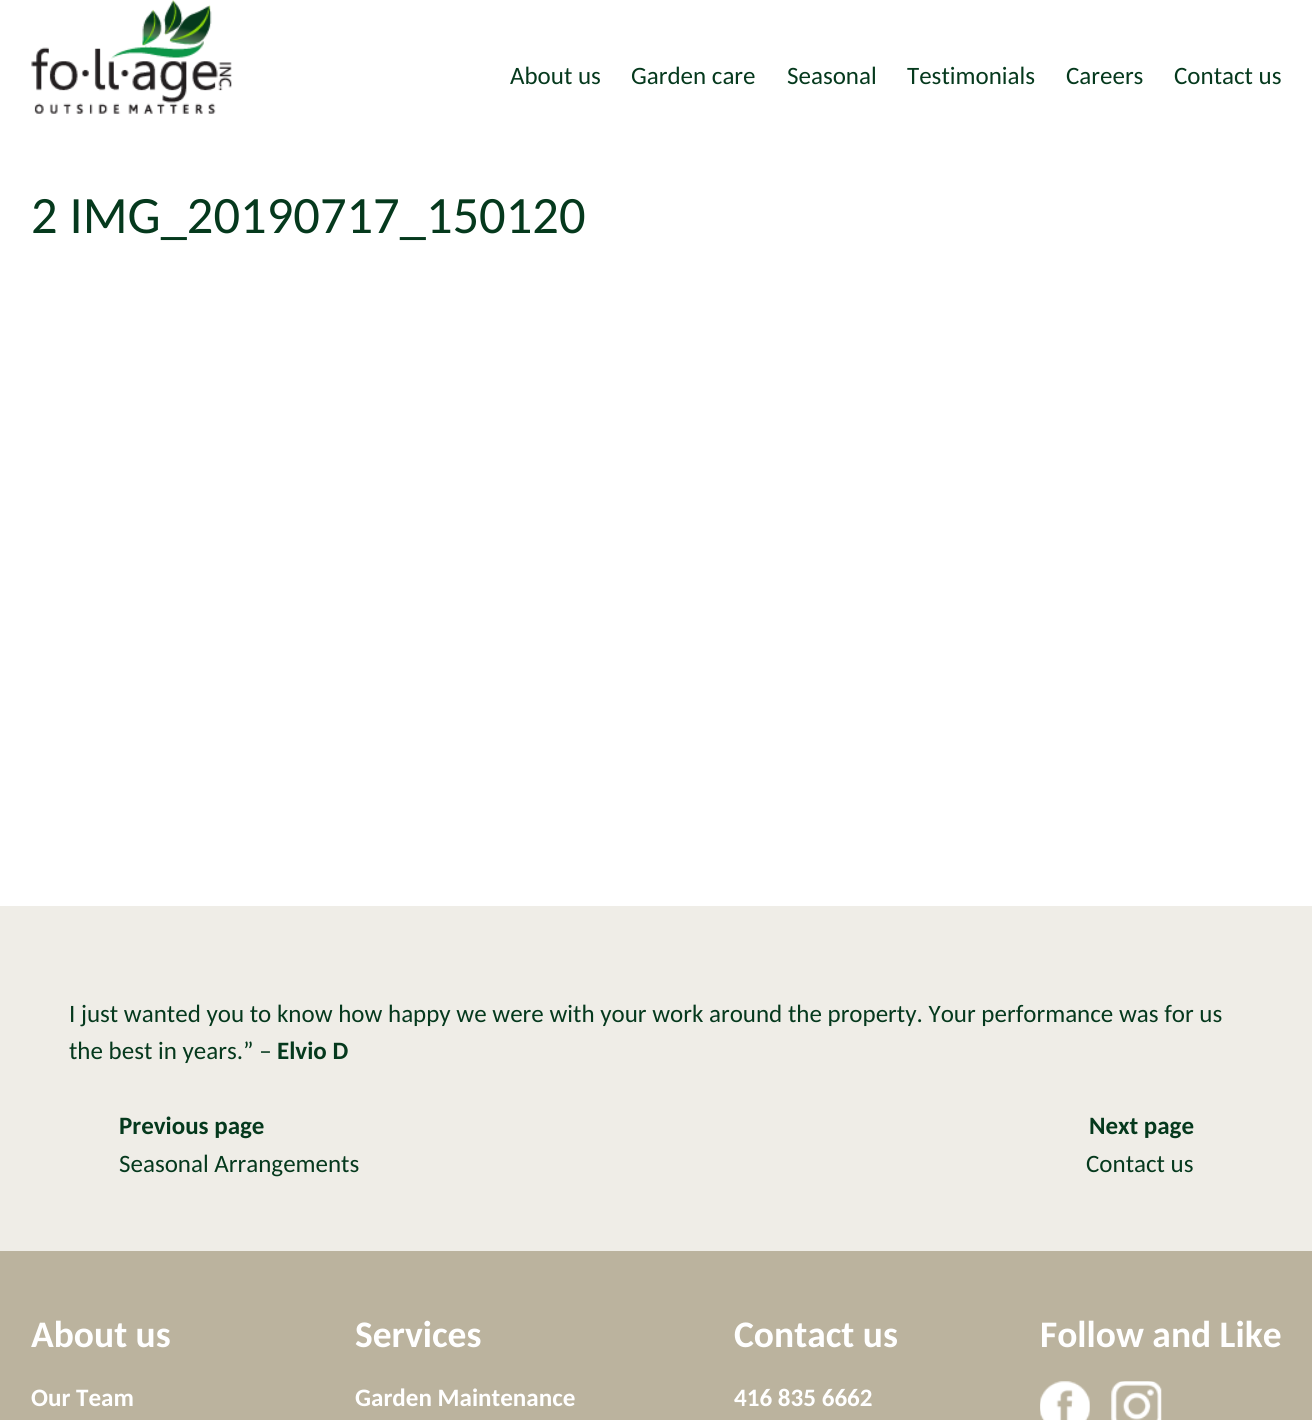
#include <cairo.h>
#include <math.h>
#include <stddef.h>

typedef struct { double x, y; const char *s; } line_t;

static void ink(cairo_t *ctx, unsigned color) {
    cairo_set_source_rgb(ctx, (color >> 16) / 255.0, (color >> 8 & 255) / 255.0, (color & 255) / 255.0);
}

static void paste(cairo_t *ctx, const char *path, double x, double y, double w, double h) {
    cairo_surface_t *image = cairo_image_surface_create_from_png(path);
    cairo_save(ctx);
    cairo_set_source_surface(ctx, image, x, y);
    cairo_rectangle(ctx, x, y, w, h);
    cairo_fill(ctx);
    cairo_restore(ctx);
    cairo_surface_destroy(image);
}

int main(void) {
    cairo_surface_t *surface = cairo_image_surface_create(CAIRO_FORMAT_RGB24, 1312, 1420);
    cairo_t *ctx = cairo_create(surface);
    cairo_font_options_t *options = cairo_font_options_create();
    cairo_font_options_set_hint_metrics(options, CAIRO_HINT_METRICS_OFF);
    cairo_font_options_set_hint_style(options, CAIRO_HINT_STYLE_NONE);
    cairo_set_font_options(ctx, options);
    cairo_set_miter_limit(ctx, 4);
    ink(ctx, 0xFFFFFF);
    cairo_paint(ctx);
    paste(ctx, "media/1.png", 31, 0, 201, 114);
    cairo_select_font_face(ctx, "Carlito", CAIRO_FONT_SLANT_NORMAL, CAIRO_FONT_WEIGHT_NORMAL);
    cairo_set_font_size(ctx, 25);
    ink(ctx, 0x05391D);
    {
        static const line_t items[] = {
            {510, 84, "About us"},
            {631, 84, "Garden care"},
            {787, 84, "Seasonal"},
            {907, 84, "Testimonials"},
            {1066, 84, "Careers"},
            {1174, 84, "Contact us"},
        };
        for (size_t i = 0; i < sizeof items / sizeof *items; i++) {
            cairo_move_to(ctx, items[i].x, items[i].y);
            cairo_show_text(ctx, items[i].s);
        }
    }
    cairo_set_font_size(ctx, 52.5);
    cairo_move_to(ctx, 31, 233);
    cairo_show_text(ctx, "2 IMG_20190717_150120");
    ink(ctx, 0xEFEDE7);
    cairo_rectangle(ctx, 0, 906, 1312, 345);
    cairo_fill(ctx);
    cairo_set_font_size(ctx, 25);
    ink(ctx, 0x05391D);
    cairo_move_to(ctx, 69, 1022);
    cairo_show_text(ctx, "I just wanted you to know how happy we were with your work around the property. Your performance was for us");
    cairo_move_to(ctx, 69, 1059);
    cairo_show_text(ctx, "the best in years.” –");
    cairo_select_font_face(ctx, "Carlito", CAIRO_FONT_SLANT_NORMAL, CAIRO_FONT_WEIGHT_BOLD);
    cairo_move_to(ctx, 277, 1059);
    cairo_show_text(ctx, "Elvio D");
    cairo_move_to(ctx, 119, 1134);
    cairo_show_text(ctx, "Previous page");
    cairo_select_font_face(ctx, "Carlito", CAIRO_FONT_SLANT_NORMAL, CAIRO_FONT_WEIGHT_NORMAL);
    cairo_move_to(ctx, 119, 1172);
    cairo_show_text(ctx, "Seasonal Arrangements");
    cairo_select_font_face(ctx, "Carlito", CAIRO_FONT_SLANT_NORMAL, CAIRO_FONT_WEIGHT_BOLD);
    cairo_move_to(ctx, 1089, 1134);
    cairo_show_text(ctx, "Next page");
    cairo_select_font_face(ctx, "Carlito", CAIRO_FONT_SLANT_NORMAL, CAIRO_FONT_WEIGHT_NORMAL);
    cairo_move_to(ctx, 1086, 1172);
    cairo_show_text(ctx, "Contact us");
    ink(ctx, 0xBBB39E);
    cairo_rectangle(ctx, 0, 1251, 1312, 169);
    cairo_fill(ctx);
    cairo_select_font_face(ctx, "Carlito", CAIRO_FONT_SLANT_NORMAL, CAIRO_FONT_WEIGHT_BOLD);
    cairo_set_font_size(ctx, 37.5);
    ink(ctx, 0xFFFFFF);
    cairo_move_to(ctx, 31, 1347);
    cairo_show_text(ctx, "About us");
    cairo_set_font_size(ctx, 25.1);
    cairo_move_to(ctx, 31, 1406);
    cairo_show_text(ctx, "Our Team");
    cairo_set_font_size(ctx, 37.5);
    cairo_move_to(ctx, 355, 1347);
    cairo_show_text(ctx, "Services");
    cairo_set_font_size(ctx, 25.1);
    cairo_move_to(ctx, 355, 1406);
    cairo_show_text(ctx, "Garden Maintenance");
    cairo_set_font_size(ctx, 37.5);
    cairo_move_to(ctx, 734, 1347);
    cairo_show_text(ctx, "Contact us");
    cairo_set_font_size(ctx, 25.1);
    cairo_move_to(ctx, 734, 1406);
    cairo_show_text(ctx, "416 835 6662");
    cairo_set_font_size(ctx, 37.5);
    cairo_move_to(ctx, 1040, 1347);
    cairo_show_text(ctx, "Follow and Like");
    paste(ctx, "media/2.png", 1040, 1381, 50, 39);
    paste(ctx, "media/3.png", 1111, 1381, 51, 39);
    cairo_surface_write_to_png(surface, "image.png");
    cairo_font_options_destroy(options);
    cairo_destroy(ctx);
    cairo_surface_destroy(surface);
    return 0;
}
